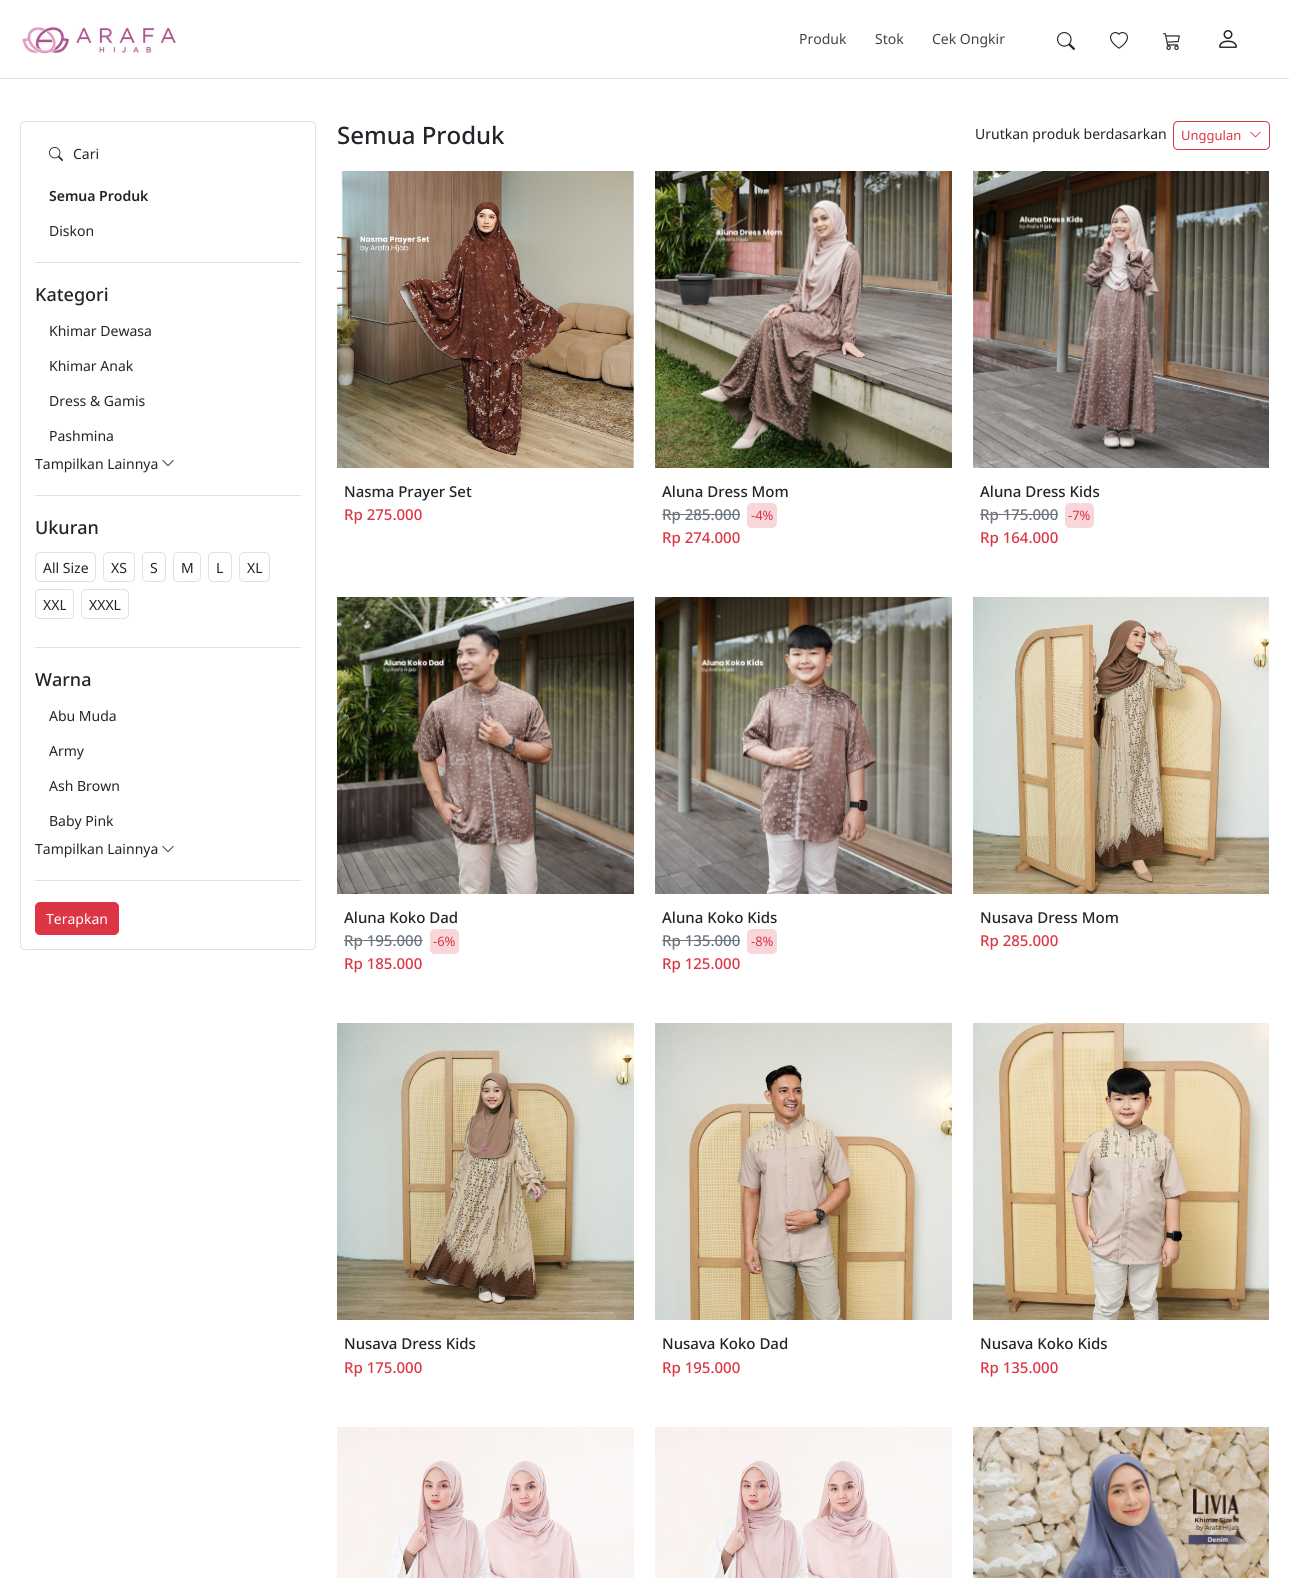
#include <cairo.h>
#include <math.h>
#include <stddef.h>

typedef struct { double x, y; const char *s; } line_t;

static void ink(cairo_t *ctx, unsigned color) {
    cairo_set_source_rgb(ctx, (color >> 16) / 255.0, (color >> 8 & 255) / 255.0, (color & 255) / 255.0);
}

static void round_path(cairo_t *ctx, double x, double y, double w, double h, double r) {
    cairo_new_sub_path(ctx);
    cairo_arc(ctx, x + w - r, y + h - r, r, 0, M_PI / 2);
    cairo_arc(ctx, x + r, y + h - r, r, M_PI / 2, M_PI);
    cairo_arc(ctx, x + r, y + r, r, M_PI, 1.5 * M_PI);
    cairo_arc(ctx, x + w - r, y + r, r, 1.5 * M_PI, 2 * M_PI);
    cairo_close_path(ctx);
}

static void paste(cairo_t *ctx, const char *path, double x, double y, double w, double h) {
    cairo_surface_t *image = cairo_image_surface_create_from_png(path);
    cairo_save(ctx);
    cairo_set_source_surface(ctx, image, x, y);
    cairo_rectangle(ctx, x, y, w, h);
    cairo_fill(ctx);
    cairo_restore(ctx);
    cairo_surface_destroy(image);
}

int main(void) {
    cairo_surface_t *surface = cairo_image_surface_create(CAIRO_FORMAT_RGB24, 1289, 1578);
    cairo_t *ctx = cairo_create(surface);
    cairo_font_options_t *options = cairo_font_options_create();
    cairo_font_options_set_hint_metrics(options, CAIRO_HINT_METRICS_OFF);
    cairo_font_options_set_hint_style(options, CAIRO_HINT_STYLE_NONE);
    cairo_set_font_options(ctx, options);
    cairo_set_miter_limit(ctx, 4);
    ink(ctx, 0xFFFFFF);
    cairo_paint(ctx);
    ink(ctx, 0xDEE2E6);
    cairo_rectangle(ctx, 0, 78, 1289, 1);
    cairo_fill(ctx);
    paste(ctx, "media/1.png", 22, 26, 154, 28);
    cairo_select_font_face(ctx, "Noto Sans", CAIRO_FONT_SLANT_NORMAL, CAIRO_FONT_WEIGHT_NORMAL);
    cairo_set_font_size(ctx, 14);
    ink(ctx, 0x444444);
    {
        static const line_t items[] = {
            {799, 44, "Produk"},
            {875, 44, "Stok"},
            {932, 44, "Cek Ongkir"},
        };
        for (size_t i = 0; i < sizeof items / sizeof *items; i++) {
            cairo_move_to(ctx, items[i].x, items[i].y);
            cairo_show_text(ctx, items[i].s);
        }
    }
    paste(ctx, "media/2.png", 1057, 32, 18, 18);
    paste(ctx, "media/3.png", 1110, 32, 18, 17);
    paste(ctx, "media/4.png", 1163, 33, 17, 17);
    paste(ctx, "media/5.png", 1219, 30, 18, 18);
    round_path(ctx, 20.5, 121.5, 295, 828, 4.5);
    ink(ctx, 0xDEE2E6);
    cairo_set_line_width(ctx, 1);
    cairo_stroke(ctx);
    paste(ctx, "media/6.png", 49, 147, 14, 14);
    ink(ctx, 0x212529);
    cairo_move_to(ctx, 73, 159);
    cairo_show_text(ctx, "Cari");
    ink(ctx, 0xDEE2E6);
    cairo_rectangle(ctx, 35, 262, 266, 1);
    cairo_fill(ctx);
    cairo_select_font_face(ctx, "Noto Sans SemiBold", CAIRO_FONT_SLANT_NORMAL, CAIRO_FONT_WEIGHT_NORMAL);
    ink(ctx, 0x212529);
    cairo_move_to(ctx, 49, 201);
    cairo_show_text(ctx, "Semua Produk");
    cairo_select_font_face(ctx, "Noto Sans", CAIRO_FONT_SLANT_NORMAL, CAIRO_FONT_WEIGHT_NORMAL);
    cairo_move_to(ctx, 49, 236);
    cairo_show_text(ctx, "Diskon");
    ink(ctx, 0xDEE2E6);
    cairo_rectangle(ctx, 35, 495, 266, 1);
    cairo_fill(ctx);
    cairo_select_font_face(ctx, "Noto Sans Medium", CAIRO_FONT_SLANT_NORMAL, CAIRO_FONT_WEIGHT_NORMAL);
    cairo_set_font_size(ctx, 18);
    ink(ctx, 0x212529);
    cairo_move_to(ctx, 35, 301);
    cairo_show_text(ctx, "Kategori");
    cairo_select_font_face(ctx, "Noto Sans", CAIRO_FONT_SLANT_NORMAL, CAIRO_FONT_WEIGHT_NORMAL);
    cairo_set_font_size(ctx, 14);
    {
        static const line_t items[] = {
            {49, 336, "Khimar Dewasa"},
            {49, 371, "Khimar Anak"},
            {49, 406, "Dress & Gamis"},
            {49, 441, "Pashmina"},
            {35, 469, "Tampilkan Lainnya"},
        };
        for (size_t i = 0; i < sizeof items / sizeof *items; i++) {
            cairo_move_to(ctx, items[i].x, items[i].y);
            cairo_show_text(ctx, items[i].s);
        }
    }
    paste(ctx, "media/7.png", 162, 460, 12, 6);
    ink(ctx, 0xDEE2E6);
    cairo_rectangle(ctx, 35, 647, 266, 1);
    cairo_fill(ctx);
    cairo_select_font_face(ctx, "Noto Sans Medium", CAIRO_FONT_SLANT_NORMAL, CAIRO_FONT_WEIGHT_NORMAL);
    cairo_set_font_size(ctx, 18);
    ink(ctx, 0x212529);
    cairo_move_to(ctx, 35, 534);
    cairo_show_text(ctx, "Ukuran");
    round_path(ctx, 35.5, 552.5, 60, 29, 4.5);
    ink(ctx, 0xDEE2E6);
    cairo_stroke(ctx);
    cairo_select_font_face(ctx, "Noto Sans", CAIRO_FONT_SLANT_NORMAL, CAIRO_FONT_WEIGHT_NORMAL);
    cairo_set_font_size(ctx, 14);
    ink(ctx, 0x212529);
    cairo_move_to(ctx, 43, 573);
    cairo_show_text(ctx, "All Size");
    round_path(ctx, 103.5, 552.5, 31, 29, 4.5);
    ink(ctx, 0xDEE2E6);
    cairo_stroke(ctx);
    ink(ctx, 0x212529);
    cairo_move_to(ctx, 111, 573);
    cairo_show_text(ctx, "XS");
    round_path(ctx, 142.5, 552.5, 23, 29, 4.5);
    ink(ctx, 0xDEE2E6);
    cairo_stroke(ctx);
    ink(ctx, 0x212529);
    cairo_move_to(ctx, 150, 573);
    cairo_show_text(ctx, "S");
    round_path(ctx, 173.5, 552.5, 27, 29, 4.5);
    ink(ctx, 0xDEE2E6);
    cairo_stroke(ctx);
    ink(ctx, 0x212529);
    cairo_move_to(ctx, 181, 573);
    cairo_show_text(ctx, "M");
    round_path(ctx, 208.5, 552.5, 23, 29, 4.5);
    ink(ctx, 0xDEE2E6);
    cairo_stroke(ctx);
    ink(ctx, 0x212529);
    cairo_move_to(ctx, 216, 573);
    cairo_show_text(ctx, "L");
    round_path(ctx, 239.5, 552.5, 30, 29, 4.5);
    ink(ctx, 0xDEE2E6);
    cairo_stroke(ctx);
    ink(ctx, 0x212529);
    cairo_move_to(ctx, 247, 573);
    cairo_show_text(ctx, "XL");
    round_path(ctx, 35.5, 589.5, 38, 29, 4.5);
    ink(ctx, 0xDEE2E6);
    cairo_stroke(ctx);
    ink(ctx, 0x212529);
    cairo_move_to(ctx, 43, 610);
    cairo_show_text(ctx, "XXL");
    round_path(ctx, 81.5, 589.5, 47, 29, 4.5);
    ink(ctx, 0xDEE2E6);
    cairo_stroke(ctx);
    ink(ctx, 0x212529);
    cairo_move_to(ctx, 89, 610);
    cairo_show_text(ctx, "XXXL");
    ink(ctx, 0xDEE2E6);
    cairo_rectangle(ctx, 35, 880, 266, 1);
    cairo_fill(ctx);
    cairo_select_font_face(ctx, "Noto Sans Medium", CAIRO_FONT_SLANT_NORMAL, CAIRO_FONT_WEIGHT_NORMAL);
    cairo_set_font_size(ctx, 18);
    ink(ctx, 0x212529);
    cairo_move_to(ctx, 35, 686);
    cairo_show_text(ctx, "Warna");
    cairo_select_font_face(ctx, "Noto Sans", CAIRO_FONT_SLANT_NORMAL, CAIRO_FONT_WEIGHT_NORMAL);
    cairo_set_font_size(ctx, 14);
    {
        static const line_t items[] = {
            {49, 721, "Abu Muda"},
            {49, 756, "Army"},
            {49, 791, "Ash Brown"},
            {49, 826, "Baby Pink"},
            {35, 854, "Tampilkan Lainnya"},
        };
        for (size_t i = 0; i < sizeof items / sizeof *items; i++) {
            cairo_move_to(ctx, items[i].x, items[i].y);
            cairo_show_text(ctx, items[i].s);
        }
    }
    paste(ctx, "media/7.png", 162, 846, 12, 6);
    ink(ctx, 0xDC3545);
    round_path(ctx, 35.5, 902.5, 83, 32, 4.5);
    cairo_fill_preserve(ctx);
    cairo_stroke(ctx);
    ink(ctx, 0xFFFFFF);
    cairo_move_to(ctx, 46, 924);
    cairo_show_text(ctx, "Terapkan");
    cairo_select_font_face(ctx, "Noto Sans Medium", CAIRO_FONT_SLANT_NORMAL, CAIRO_FONT_WEIGHT_NORMAL);
    cairo_set_font_size(ctx, 24);
    ink(ctx, 0x212529);
    cairo_move_to(ctx, 337, 144);
    cairo_show_text(ctx, "Semua Produk");
    cairo_select_font_face(ctx, "Noto Sans", CAIRO_FONT_SLANT_NORMAL, CAIRO_FONT_WEIGHT_NORMAL);
    cairo_set_font_size(ctx, 14);
    cairo_move_to(ctx, 975, 139);
    cairo_show_text(ctx, "Urutkan produk berdasarkan");
    round_path(ctx, 1173.5, 121.5, 96, 28, 4.5);
    ink(ctx, 0xDC3545);
    cairo_stroke(ctx);
    cairo_set_font_size(ctx, 13);
    cairo_move_to(ctx, 1181, 140);
    cairo_show_text(ctx, "Unggulan");
    paste(ctx, "media/8.png", 1250, 131, 11, 7);
    paste(ctx, "media/9.png", 337, 171, 297, 297);
    cairo_select_font_face(ctx, "Noto Sans Medium", CAIRO_FONT_SLANT_NORMAL, CAIRO_FONT_WEIGHT_NORMAL);
    cairo_set_font_size(ctx, 15);
    ink(ctx, 0x212529);
    cairo_move_to(ctx, 344, 497);
    cairo_show_text(ctx, "Nasma Prayer Set");
    ink(ctx, 0xDC3545);
    cairo_move_to(ctx, 344, 520);
    cairo_show_text(ctx, "Rp 275.000");
    paste(ctx, "media/10.png", 655, 171, 297, 297);
    ink(ctx, 0x212529);
    cairo_move_to(ctx, 662, 497);
    cairo_show_text(ctx, "Aluna Dress Mom");
    ink(ctx, 0x6C757D);
    cairo_move_to(ctx, 662, 520);
    cairo_show_text(ctx, "Rp 285.000");
    cairo_rectangle(ctx, 662, 514, 78, 1);
    cairo_fill(ctx);
    ink(ctx, 0xF8D7DA);
    round_path(ctx, 747, 503, 30, 25, 5);
    cairo_fill(ctx);
    cairo_select_font_face(ctx, "Noto Sans", CAIRO_FONT_SLANT_NORMAL, CAIRO_FONT_WEIGHT_NORMAL);
    cairo_set_font_size(ctx, 13);
    ink(ctx, 0xDC3545);
    cairo_move_to(ctx, 751, 520);
    cairo_show_text(ctx, "-4%");
    cairo_select_font_face(ctx, "Noto Sans Medium", CAIRO_FONT_SLANT_NORMAL, CAIRO_FONT_WEIGHT_NORMAL);
    cairo_set_font_size(ctx, 15);
    cairo_move_to(ctx, 662, 543);
    cairo_show_text(ctx, "Rp 274.000");
    paste(ctx, "media/11.png", 973, 171, 296, 297);
    ink(ctx, 0x212529);
    cairo_move_to(ctx, 980, 497);
    cairo_show_text(ctx, "Aluna Dress Kids");
    ink(ctx, 0x6C757D);
    cairo_move_to(ctx, 980, 520);
    cairo_show_text(ctx, "Rp 175.000");
    cairo_rectangle(ctx, 980, 514, 78, 1);
    cairo_fill(ctx);
    ink(ctx, 0xF8D7DA);
    round_path(ctx, 1065, 503, 29, 25, 5);
    cairo_fill(ctx);
    cairo_select_font_face(ctx, "Noto Sans", CAIRO_FONT_SLANT_NORMAL, CAIRO_FONT_WEIGHT_NORMAL);
    cairo_set_font_size(ctx, 13);
    ink(ctx, 0xDC3545);
    cairo_move_to(ctx, 1068, 520);
    cairo_show_text(ctx, "-7%");
    cairo_select_font_face(ctx, "Noto Sans Medium", CAIRO_FONT_SLANT_NORMAL, CAIRO_FONT_WEIGHT_NORMAL);
    cairo_set_font_size(ctx, 15);
    cairo_move_to(ctx, 980, 543);
    cairo_show_text(ctx, "Rp 164.000");
    paste(ctx, "media/12.png", 337, 597, 297, 297);
    ink(ctx, 0x212529);
    cairo_move_to(ctx, 344, 923);
    cairo_show_text(ctx, "Aluna Koko Dad");
    ink(ctx, 0x6C757D);
    cairo_move_to(ctx, 344, 946);
    cairo_show_text(ctx, "Rp 195.000");
    cairo_rectangle(ctx, 344, 940, 79, 1);
    cairo_fill(ctx);
    ink(ctx, 0xF8D7DA);
    round_path(ctx, 430, 929, 29, 25, 5);
    cairo_fill(ctx);
    cairo_select_font_face(ctx, "Noto Sans", CAIRO_FONT_SLANT_NORMAL, CAIRO_FONT_WEIGHT_NORMAL);
    cairo_set_font_size(ctx, 13);
    ink(ctx, 0xDC3545);
    cairo_move_to(ctx, 433, 946);
    cairo_show_text(ctx, "-6%");
    cairo_select_font_face(ctx, "Noto Sans Medium", CAIRO_FONT_SLANT_NORMAL, CAIRO_FONT_WEIGHT_NORMAL);
    cairo_set_font_size(ctx, 15);
    cairo_move_to(ctx, 344, 969);
    cairo_show_text(ctx, "Rp 185.000");
    paste(ctx, "media/13.png", 655, 597, 297, 297);
    ink(ctx, 0x212529);
    cairo_move_to(ctx, 662, 923);
    cairo_show_text(ctx, "Aluna Koko Kids");
    ink(ctx, 0x6C757D);
    cairo_move_to(ctx, 662, 946);
    cairo_show_text(ctx, "Rp 135.000");
    cairo_rectangle(ctx, 662, 940, 78, 1);
    cairo_fill(ctx);
    ink(ctx, 0xF8D7DA);
    round_path(ctx, 747, 929, 30, 25, 5);
    cairo_fill(ctx);
    cairo_select_font_face(ctx, "Noto Sans", CAIRO_FONT_SLANT_NORMAL, CAIRO_FONT_WEIGHT_NORMAL);
    cairo_set_font_size(ctx, 13);
    ink(ctx, 0xDC3545);
    cairo_move_to(ctx, 751, 946);
    cairo_show_text(ctx, "-8%");
    cairo_select_font_face(ctx, "Noto Sans Medium", CAIRO_FONT_SLANT_NORMAL, CAIRO_FONT_WEIGHT_NORMAL);
    cairo_set_font_size(ctx, 15);
    cairo_move_to(ctx, 662, 969);
    cairo_show_text(ctx, "Rp 125.000");
    paste(ctx, "media/14.png", 973, 597, 296, 297);
    ink(ctx, 0x212529);
    cairo_move_to(ctx, 980, 923);
    cairo_show_text(ctx, "Nusava Dress Mom");
    ink(ctx, 0xDC3545);
    cairo_move_to(ctx, 980, 946);
    cairo_show_text(ctx, "Rp 285.000");
    paste(ctx, "media/15.png", 337, 1023, 297, 297);
    ink(ctx, 0x212529);
    cairo_move_to(ctx, 344, 1349);
    cairo_show_text(ctx, "Nusava Dress Kids");
    ink(ctx, 0xDC3545);
    cairo_move_to(ctx, 344, 1373);
    cairo_show_text(ctx, "Rp 175.000");
    paste(ctx, "media/16.png", 655, 1023, 297, 297);
    ink(ctx, 0x212529);
    cairo_move_to(ctx, 662, 1349);
    cairo_show_text(ctx, "Nusava Koko Dad");
    ink(ctx, 0xDC3545);
    cairo_move_to(ctx, 662, 1373);
    cairo_show_text(ctx, "Rp 195.000");
    paste(ctx, "media/17.png", 973, 1023, 296, 297);
    ink(ctx, 0x212529);
    cairo_move_to(ctx, 980, 1349);
    cairo_show_text(ctx, "Nusava Koko Kids");
    ink(ctx, 0xDC3545);
    cairo_move_to(ctx, 980, 1373);
    cairo_show_text(ctx, "Rp 135.000");
    paste(ctx, "media/18.png", 337, 1427, 297, 151);
    paste(ctx, "media/19.png", 655, 1427, 297, 151);
    paste(ctx, "media/20.png", 973, 1427, 296, 151);
    cairo_surface_write_to_png(surface, "image.png");
    cairo_font_options_destroy(options);
    cairo_destroy(ctx);
    cairo_surface_destroy(surface);
    return 0;
}
